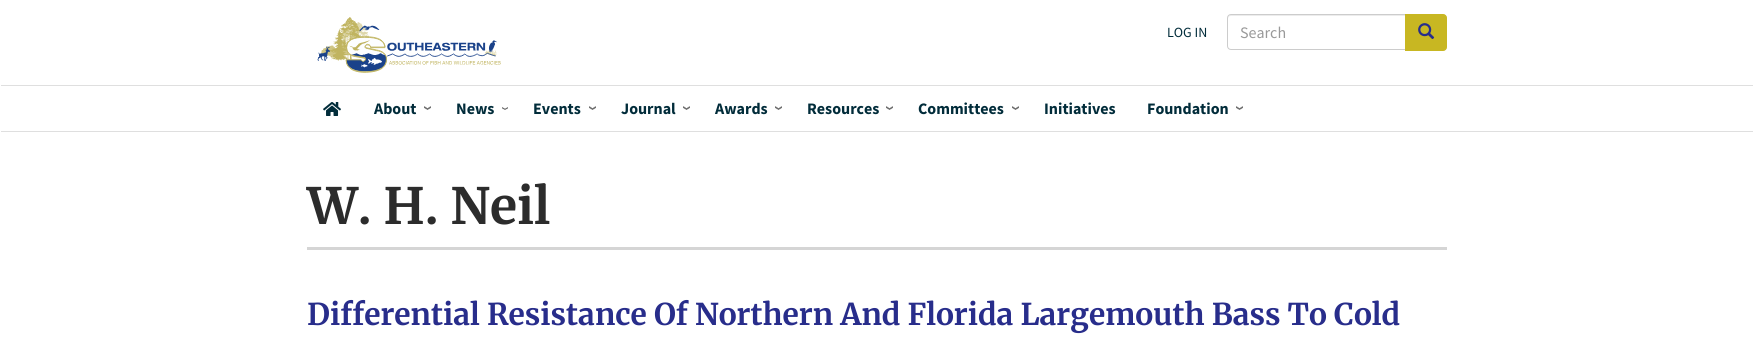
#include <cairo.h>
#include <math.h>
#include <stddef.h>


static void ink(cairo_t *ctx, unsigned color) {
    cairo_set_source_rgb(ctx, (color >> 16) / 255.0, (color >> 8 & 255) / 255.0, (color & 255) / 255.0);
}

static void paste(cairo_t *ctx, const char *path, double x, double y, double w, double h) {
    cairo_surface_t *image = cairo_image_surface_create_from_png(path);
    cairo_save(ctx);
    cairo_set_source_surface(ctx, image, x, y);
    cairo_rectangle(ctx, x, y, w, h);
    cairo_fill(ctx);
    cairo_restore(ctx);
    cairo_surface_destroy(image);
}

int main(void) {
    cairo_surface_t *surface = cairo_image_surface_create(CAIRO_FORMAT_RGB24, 1754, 347);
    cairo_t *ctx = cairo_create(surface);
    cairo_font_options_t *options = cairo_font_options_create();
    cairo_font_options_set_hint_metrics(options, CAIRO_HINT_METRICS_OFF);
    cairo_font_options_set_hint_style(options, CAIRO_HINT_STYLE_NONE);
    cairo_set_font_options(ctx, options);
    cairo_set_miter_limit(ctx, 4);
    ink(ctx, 0xFFFFFF);
    cairo_paint(ctx);
    ink(ctx, 0xDFDFDF);
    cairo_rectangle(ctx, 1, 85, 1752, 1);
    cairo_fill(ctx);
    paste(ctx, "media/1.png", 317, 17, 184, 56);
    cairo_select_font_face(ctx, "Source Sans Pro", CAIRO_FONT_SLANT_NORMAL, CAIRO_FONT_WEIGHT_NORMAL);
    cairo_set_font_size(ctx, 14);
    ink(ctx, 0x012C3A);
    cairo_move_to(ctx, 1167, 37);
    cairo_show_text(ctx, "LOG IN");
    ink(ctx, 0xECECEC);
    cairo_new_path(ctx);
    cairo_move_to(ctx, 1231, 16);
    cairo_line_to(ctx, 1405, 16);
    cairo_line_to(ctx, 1405, 15);
    cairo_line_to(ctx, 1230, 15);
    cairo_curve_to(ctx, 1228, 16, 1228, 17, 1228, 19);
    cairo_curve_to(ctx, 1228, 17, 1229, 16, 1231, 16);
    cairo_close_path(ctx);
    cairo_fill(ctx);
    cairo_new_path(ctx);
    cairo_move_to(ctx, 1231, 14.5);
    cairo_line_to(ctx, 1405.5, 14.5);
    cairo_line_to(ctx, 1405.5, 49.5);
    cairo_line_to(ctx, 1231, 49.5);
    cairo_curve_to(ctx, 1229, 49.5, 1227.5, 48, 1227.5, 46);
    cairo_line_to(ctx, 1227.5, 18);
    cairo_curve_to(ctx, 1227.5, 16, 1229, 14.5, 1231, 14.5);
    cairo_close_path(ctx);
    ink(ctx, 0xCCCCCC);
    cairo_set_line_width(ctx, 1);
    cairo_stroke(ctx);
    cairo_set_font_size(ctx, 16);
    ink(ctx, 0x999999);
    cairo_move_to(ctx, 1240, 38);
    cairo_show_text(ctx, "Search");
    ink(ctx, 0xC8B722);
    cairo_new_path(ctx);
    cairo_move_to(ctx, 1405.5, 14.5);
    cairo_line_to(ctx, 1443, 14.5);
    cairo_curve_to(ctx, 1445, 14.5, 1446.5, 16, 1446.5, 18);
    cairo_line_to(ctx, 1446.5, 47);
    cairo_curve_to(ctx, 1446.5, 49, 1445, 50.5, 1443, 50.5);
    cairo_line_to(ctx, 1405.5, 50.5);
    cairo_close_path(ctx);
    cairo_fill_preserve(ctx);
    cairo_stroke(ctx);
    paste(ctx, "media/2.png", 1418, 23, 17, 16);
    ink(ctx, 0xDFDFDF);
    cairo_rectangle(ctx, 1, 131, 1752, 1);
    cairo_fill(ctx);
    paste(ctx, "media/3.png", 323, 102, 18, 14);
    cairo_select_font_face(ctx, "Source Sans Pro", CAIRO_FONT_SLANT_NORMAL, CAIRO_FONT_WEIGHT_BOLD);
    ink(ctx, 0x012C3A);
    cairo_move_to(ctx, 374, 114);
    cairo_show_text(ctx, "About");
    paste(ctx, "media/4.png", 424, 106, 7, 4);
    cairo_move_to(ctx, 456, 114);
    cairo_show_text(ctx, "News");
    paste(ctx, "media/5.png", 502, 107, 6, 3);
    cairo_move_to(ctx, 533, 114);
    cairo_show_text(ctx, "Events");
    paste(ctx, "media/4.png", 589, 106, 7, 4);
    cairo_move_to(ctx, 621, 114);
    cairo_show_text(ctx, "Journal");
    paste(ctx, "media/4.png", 683, 106, 7, 4);
    cairo_move_to(ctx, 715, 114);
    cairo_show_text(ctx, "Awards");
    paste(ctx, "media/4.png", 775, 106, 7, 4);
    cairo_move_to(ctx, 807, 114);
    cairo_show_text(ctx, "Resources");
    paste(ctx, "media/4.png", 886, 106, 7, 4);
    cairo_move_to(ctx, 918, 114);
    cairo_show_text(ctx, "Committees");
    paste(ctx, "media/4.png", 1012, 106, 7, 4);
    cairo_move_to(ctx, 1044, 114);
    cairo_show_text(ctx, "Initiatives");
    cairo_move_to(ctx, 1147, 114);
    cairo_show_text(ctx, "Foundation");
    paste(ctx, "media/6.png", 1236, 106, 7, 4);
    ink(ctx, 0xD5D5D5);
    cairo_rectangle(ctx, 307, 247, 1140, 3);
    cairo_fill(ctx);
    cairo_select_font_face(ctx, "Merriweather", CAIRO_FONT_SLANT_NORMAL, CAIRO_FONT_WEIGHT_BOLD);
    cairo_set_font_size(ctx, 50);
    ink(ctx, 0x2C2C2C);
    cairo_move_to(ctx, 307, 224);
    cairo_show_text(ctx, "W. H. Neil");
    cairo_set_font_size(ctx, 30);
    ink(ctx, 0x282D8B);
    cairo_move_to(ctx, 307, 325);
    cairo_show_text(ctx, "Differential Resistance Of Northern And Florida Largemouth Bass To Cold");
    cairo_surface_write_to_png(surface, "image.png");
    cairo_font_options_destroy(options);
    cairo_destroy(ctx);
    cairo_surface_destroy(surface);
    return 0;
}
